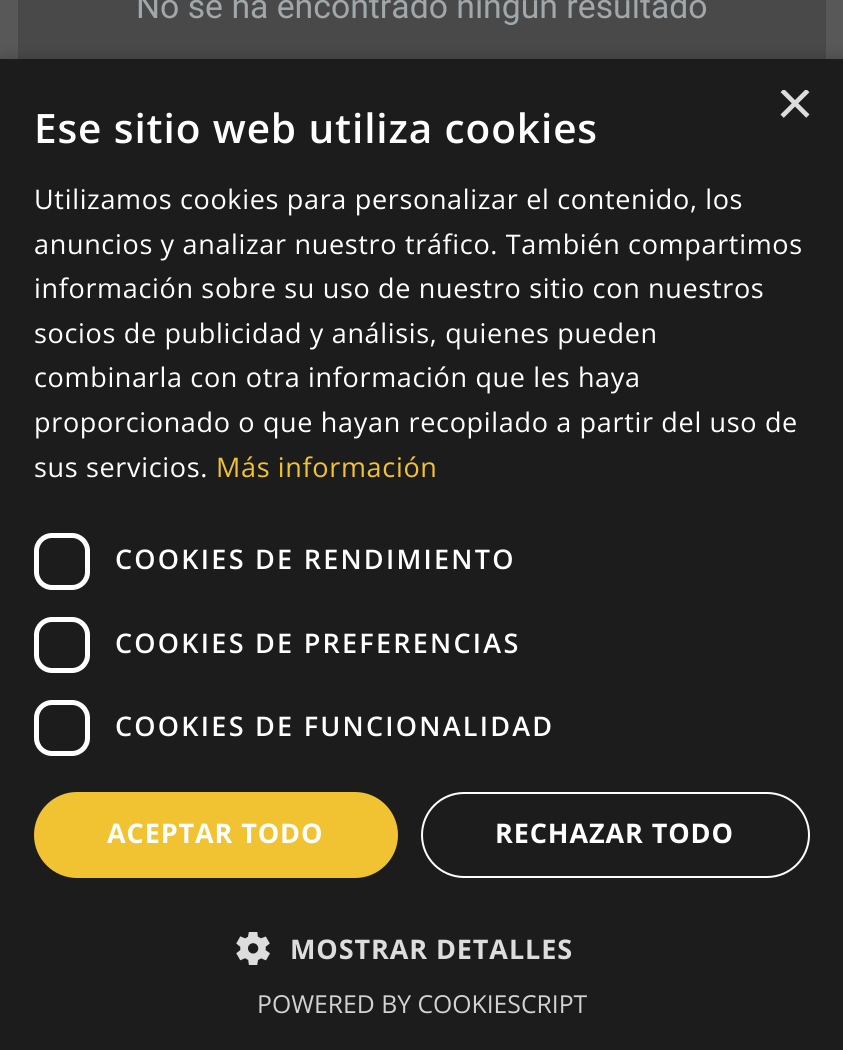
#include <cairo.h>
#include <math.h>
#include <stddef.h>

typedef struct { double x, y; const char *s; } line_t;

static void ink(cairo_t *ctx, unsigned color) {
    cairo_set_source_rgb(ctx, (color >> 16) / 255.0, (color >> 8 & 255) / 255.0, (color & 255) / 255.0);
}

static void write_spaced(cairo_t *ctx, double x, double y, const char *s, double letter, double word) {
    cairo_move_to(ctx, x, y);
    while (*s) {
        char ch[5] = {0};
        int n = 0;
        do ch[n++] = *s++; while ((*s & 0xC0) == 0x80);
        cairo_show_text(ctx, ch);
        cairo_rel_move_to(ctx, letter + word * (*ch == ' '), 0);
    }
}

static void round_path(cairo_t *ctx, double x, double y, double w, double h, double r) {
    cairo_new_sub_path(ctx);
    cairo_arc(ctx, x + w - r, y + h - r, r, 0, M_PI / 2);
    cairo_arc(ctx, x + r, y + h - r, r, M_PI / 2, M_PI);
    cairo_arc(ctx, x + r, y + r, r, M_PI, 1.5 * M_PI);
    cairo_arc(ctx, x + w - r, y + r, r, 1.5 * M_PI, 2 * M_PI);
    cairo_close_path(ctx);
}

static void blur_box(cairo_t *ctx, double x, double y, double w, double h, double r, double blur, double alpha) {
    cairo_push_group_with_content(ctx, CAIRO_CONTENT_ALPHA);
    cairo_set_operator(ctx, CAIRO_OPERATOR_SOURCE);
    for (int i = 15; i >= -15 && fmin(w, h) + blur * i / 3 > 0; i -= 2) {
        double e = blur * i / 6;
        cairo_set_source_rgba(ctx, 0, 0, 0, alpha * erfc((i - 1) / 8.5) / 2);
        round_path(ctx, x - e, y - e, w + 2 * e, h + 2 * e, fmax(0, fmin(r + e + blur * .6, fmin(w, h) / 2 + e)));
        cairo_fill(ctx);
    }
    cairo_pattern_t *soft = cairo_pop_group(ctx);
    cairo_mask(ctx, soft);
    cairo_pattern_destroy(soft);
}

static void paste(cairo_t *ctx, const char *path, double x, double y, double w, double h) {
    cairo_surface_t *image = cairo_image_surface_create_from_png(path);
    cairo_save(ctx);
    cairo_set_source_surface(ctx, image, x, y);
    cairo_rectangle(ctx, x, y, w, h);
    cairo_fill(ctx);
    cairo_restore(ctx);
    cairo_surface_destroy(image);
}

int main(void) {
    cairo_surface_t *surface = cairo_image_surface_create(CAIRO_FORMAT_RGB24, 843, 1050);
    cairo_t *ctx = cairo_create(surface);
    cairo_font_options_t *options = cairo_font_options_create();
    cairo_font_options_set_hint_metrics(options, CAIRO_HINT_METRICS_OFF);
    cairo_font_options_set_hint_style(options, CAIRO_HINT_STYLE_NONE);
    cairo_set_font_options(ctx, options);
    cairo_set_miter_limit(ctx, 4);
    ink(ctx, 0x585858);
    cairo_paint(ctx);
    ink(ctx, 0x494949);
    cairo_rectangle(ctx, 18, 0, 808, 59);
    cairo_fill(ctx);
    cairo_select_font_face(ctx, "Roboto", CAIRO_FONT_SLANT_NORMAL, CAIRO_FONT_WEIGHT_NORMAL);
    cairo_set_font_size(ctx, 33.75);
    ink(ctx, 0xA0A8AC);
    cairo_move_to(ctx, 136, 18);
    cairo_show_text(ctx, "No se ha encontrado ningún resultado");
    ink(ctx, 0x000000);
    blur_box(ctx, 2, 63, 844, 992, 0, 9, 0.35);
    ink(ctx, 0x1C1C1C);
    cairo_rectangle(ctx, 0, 59, 843, 991);
    cairo_fill(ctx);
    cairo_save(ctx);
    cairo_rectangle(ctx, 776, 90, 34, 34);
    cairo_clip(ctx);
    cairo_select_font_face(ctx, "Liberation Sans", CAIRO_FONT_SLANT_NORMAL, CAIRO_FONT_WEIGHT_NORMAL);
    cairo_set_font_size(ctx, 65);
    ink(ctx, 0xDDDDDD);
    cairo_move_to(ctx, 776, 125);
    cairo_show_text(ctx, "×");
    cairo_restore(ctx);
    cairo_select_font_face(ctx, "Open Sans SemiBold", CAIRO_FONT_SLANT_NORMAL, CAIRO_FONT_WEIGHT_NORMAL);
    cairo_set_font_size(ctx, 40.5);
    ink(ctx, 0xFFFFFF);
    write_spaced(ctx, 34, 143, "Ese sitio web utiliza cookies", 0.9, 0);
    cairo_select_font_face(ctx, "Open Sans", CAIRO_FONT_SLANT_NORMAL, CAIRO_FONT_WEIGHT_NORMAL);
    cairo_set_font_size(ctx, 27);
    {
        static const line_t items[] = {
            {34, 209, "Utilizamos cookies para personalizar el contenido, los"},
            {34, 254, "anuncios y analizar nuestro tráfico. También compartimos"},
            {34, 298, "información sobre su uso de nuestro sitio con nuestros"},
            {34, 343, "socios de publicidad y análisis, quienes pueden"},
            {34, 387, "combinarla con otra información que les haya"},
            {34, 432, "proporcionado o que hayan recopilado a partir del uso de"},
            {34, 477, "sus servicios."},
        };
        for (size_t i = 0; i < sizeof items / sizeof *items; i++) {
            write_spaced(ctx, items[i].x, items[i].y, items[i].s, 0.67, 0);
        }
    }
    ink(ctx, 0xF1C232);
    write_spaced(ctx, 216, 477, "Más información", 0.67, 0);
    round_path(ctx, 36.5, 535.5, 51, 52, 15.5);
    ink(ctx, 0xFFFFFF);
    cairo_set_line_width(ctx, 5);
    cairo_stroke(ctx);
    cairo_select_font_face(ctx, "Open Sans SemiBold", CAIRO_FONT_SLANT_NORMAL, CAIRO_FONT_WEIGHT_NORMAL);
    write_spaced(ctx, 115, 569, "COOKIES DE RENDIMIENTO", 2.25, 0);
    round_path(ctx, 36.5, 619.5, 51, 51, 15.5);
    cairo_stroke(ctx);
    write_spaced(ctx, 115, 653, "COOKIES DE PREFERENCIAS", 2.25, 0);
    round_path(ctx, 36.5, 702.5, 51, 51, 15.5);
    cairo_stroke(ctx);
    write_spaced(ctx, 115, 736, "COOKIES DE FUNCIONALIDAD", 2.25, 0);
    ink(ctx, 0xF1C232);
    round_path(ctx, 34, 792, 364, 86, 43);
    cairo_fill(ctx);
    cairo_select_font_face(ctx, "Open Sans", CAIRO_FONT_SLANT_NORMAL, CAIRO_FONT_WEIGHT_BOLD);
    ink(ctx, 0xFFFFFF);
    write_spaced(ctx, 107, 843, "ACEPTAR TODO", 0.9, 0);
    round_path(ctx, 422, 793, 387, 84, 42);
    cairo_set_line_width(ctx, 2);
    cairo_stroke(ctx);
    write_spaced(ctx, 495, 843, "RECHAZAR TODO", 0.9, 0);
    paste(ctx, "media/1.png", 236, 932, 34, 33);
    ink(ctx, 0xDDDDDD);
    write_spaced(ctx, 290, 959, "MOSTRAR DETALLES", 0.9, 0);
    cairo_select_font_face(ctx, "Open Sans", CAIRO_FONT_SLANT_NORMAL, CAIRO_FONT_WEIGHT_NORMAL);
    cairo_set_font_size(ctx, 24.75);
    ink(ctx, 0xD2D2D2);
    cairo_move_to(ctx, 257, 1013);
    cairo_show_text(ctx, "POWERED BY COOKIESCRIPT");
    cairo_surface_write_to_png(surface, "image.png");
    cairo_font_options_destroy(options);
    cairo_destroy(ctx);
    cairo_surface_destroy(surface);
    return 0;
}
